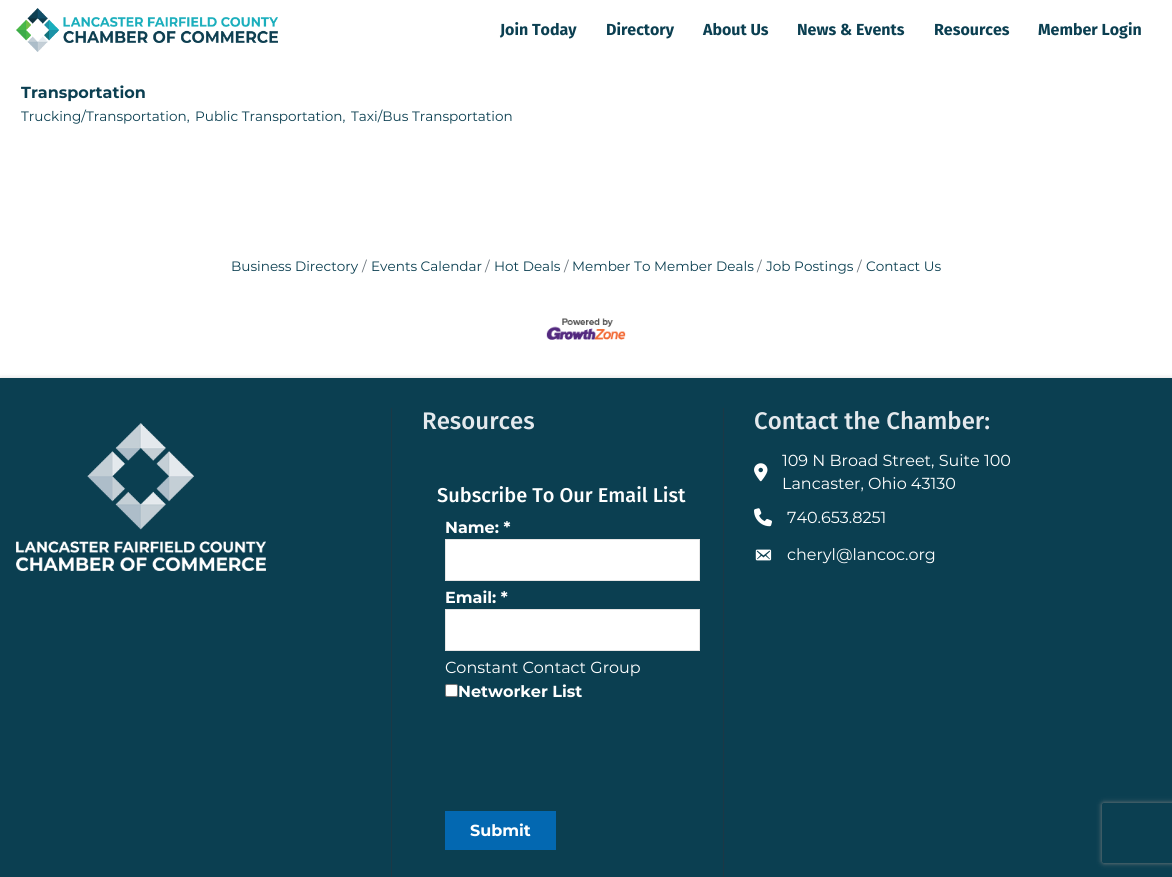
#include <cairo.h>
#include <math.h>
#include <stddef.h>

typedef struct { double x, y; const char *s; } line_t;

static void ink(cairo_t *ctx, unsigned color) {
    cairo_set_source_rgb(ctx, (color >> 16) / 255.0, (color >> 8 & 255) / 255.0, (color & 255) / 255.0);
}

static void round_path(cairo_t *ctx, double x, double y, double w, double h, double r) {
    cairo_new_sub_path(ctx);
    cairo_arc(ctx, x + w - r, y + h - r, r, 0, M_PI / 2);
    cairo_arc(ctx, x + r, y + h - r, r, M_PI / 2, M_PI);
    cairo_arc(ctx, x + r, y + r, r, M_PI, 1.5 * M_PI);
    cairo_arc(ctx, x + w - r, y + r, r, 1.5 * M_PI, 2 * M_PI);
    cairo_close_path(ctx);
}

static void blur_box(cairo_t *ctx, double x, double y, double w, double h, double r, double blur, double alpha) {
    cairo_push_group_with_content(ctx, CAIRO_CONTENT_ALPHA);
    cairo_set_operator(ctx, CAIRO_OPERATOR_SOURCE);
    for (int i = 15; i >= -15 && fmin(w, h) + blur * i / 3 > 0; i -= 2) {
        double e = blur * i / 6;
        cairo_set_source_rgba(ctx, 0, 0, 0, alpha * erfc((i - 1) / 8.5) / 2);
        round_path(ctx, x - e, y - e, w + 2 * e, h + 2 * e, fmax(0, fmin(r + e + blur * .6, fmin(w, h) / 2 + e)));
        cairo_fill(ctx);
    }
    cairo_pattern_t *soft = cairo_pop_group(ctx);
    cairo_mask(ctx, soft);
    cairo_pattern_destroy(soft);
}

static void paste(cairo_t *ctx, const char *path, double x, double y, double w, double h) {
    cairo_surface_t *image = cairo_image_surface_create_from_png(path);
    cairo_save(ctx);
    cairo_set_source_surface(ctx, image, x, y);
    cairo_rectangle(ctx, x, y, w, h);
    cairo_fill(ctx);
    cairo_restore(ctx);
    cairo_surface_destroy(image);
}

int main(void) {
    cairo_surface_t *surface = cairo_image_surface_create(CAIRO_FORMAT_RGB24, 1172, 877);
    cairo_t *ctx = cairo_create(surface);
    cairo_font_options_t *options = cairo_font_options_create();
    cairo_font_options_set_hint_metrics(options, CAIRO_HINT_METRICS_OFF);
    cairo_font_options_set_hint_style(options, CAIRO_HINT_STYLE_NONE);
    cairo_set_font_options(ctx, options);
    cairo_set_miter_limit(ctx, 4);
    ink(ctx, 0xFFFFFF);
    cairo_paint(ctx);
    paste(ctx, "media/1.png", 16, 8, 262, 44);
    cairo_select_font_face(ctx, "Fira Sans", CAIRO_FONT_SLANT_NORMAL, CAIRO_FONT_WEIGHT_BOLD);
    cairo_set_font_size(ctx, 16);
    ink(ctx, 0x0B3F51);
    {
        static const line_t items[] = {
            {500, 35, "Join Today"},
            {606, 35, "Directory"},
            {703, 35, "About Us"},
            {797, 35, "News & Events"},
            {934, 35, "Resources"},
            {1038, 35, "Member Login"},
        };
        for (size_t i = 0; i < sizeof items / sizeof *items; i++) {
            cairo_move_to(ctx, items[i].x, items[i].y);
            cairo_show_text(ctx, items[i].s);
        }
    }
    cairo_select_font_face(ctx, "Montserrat", CAIRO_FONT_SLANT_NORMAL, CAIRO_FONT_WEIGHT_BOLD);
    cairo_move_to(ctx, 21, 98);
    cairo_show_text(ctx, "Transportation");
    cairo_select_font_face(ctx, "Montserrat", CAIRO_FONT_SLANT_NORMAL, CAIRO_FONT_WEIGHT_NORMAL);
    cairo_set_font_size(ctx, 13.6);
    {
        static const line_t items[] = {
            {21, 121, "Trucking/Transportation,"},
            {195, 121, "Public Transportation,"},
            {351, 121, "Taxi/Bus Transportation"},
            {231, 271, "Business Directory"},
        };
        for (size_t i = 0; i < sizeof items / sizeof *items; i++) {
            cairo_move_to(ctx, items[i].x, items[i].y);
            cairo_show_text(ctx, items[i].s);
        }
    }
    ink(ctx, 0x6C757D);
    cairo_move_to(ctx, 362, 271);
    cairo_show_text(ctx, "/");
    ink(ctx, 0x0B3F51);
    cairo_move_to(ctx, 371, 271);
    cairo_show_text(ctx, "Events Calendar");
    ink(ctx, 0x6C757D);
    cairo_move_to(ctx, 485, 271);
    cairo_show_text(ctx, "/");
    ink(ctx, 0x0B3F51);
    cairo_move_to(ctx, 494, 271);
    cairo_show_text(ctx, "Hot Deals");
    ink(ctx, 0x6C757D);
    cairo_move_to(ctx, 564, 271);
    cairo_show_text(ctx, "/");
    ink(ctx, 0x0B3F51);
    cairo_move_to(ctx, 572, 271);
    cairo_show_text(ctx, "Member To Member Deals");
    ink(ctx, 0x6C757D);
    cairo_move_to(ctx, 757, 271);
    cairo_show_text(ctx, "/");
    ink(ctx, 0x0B3F51);
    cairo_move_to(ctx, 766, 271);
    cairo_show_text(ctx, "Job Postings");
    ink(ctx, 0x6C757D);
    cairo_move_to(ctx, 857, 271);
    cairo_show_text(ctx, "/");
    ink(ctx, 0x0B3F51);
    cairo_move_to(ctx, 866, 271);
    cairo_show_text(ctx, "Contact Us");
    paste(ctx, "media/2.png", 546, 318, 80, 22);
    ink(ctx, 0x000000);
    blur_box(ctx, 0, 378, 1172, 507, 0, 2.5, 0.15);
    ink(ctx, 0x0B3F51);
    cairo_rectangle(ctx, 0, 378, 1172, 499);
    cairo_fill(ctx);
    paste(ctx, "media/3.png", 16, 423, 250, 148);
    ink(ctx, 0x1C3846);
    cairo_rectangle(ctx, 391, 408, 1, 469);
    cairo_fill(ctx);
    cairo_select_font_face(ctx, "Fira Sans Medium", CAIRO_FONT_SLANT_NORMAL, CAIRO_FONT_WEIGHT_NORMAL);
    cairo_set_font_size(ctx, 24);
    ink(ctx, 0xE4E9ED);
    cairo_move_to(ctx, 422, 429);
    cairo_show_text(ctx, "Resources");
    cairo_set_font_size(ctx, 20);
    ink(ctx, 0xFFFFFF);
    cairo_move_to(ctx, 437, 502);
    cairo_show_text(ctx, "Subscribe To Our Email List");
    cairo_select_font_face(ctx, "Montserrat", CAIRO_FONT_SLANT_NORMAL, CAIRO_FONT_WEIGHT_BOLD);
    cairo_set_font_size(ctx, 16);
    cairo_move_to(ctx, 445, 533);
    cairo_show_text(ctx, "Name: *");
    cairo_rectangle(ctx, 445.5, 539.5, 254, 41);
    cairo_fill_preserve(ctx);
    ink(ctx, 0xE6E6E6);
    cairo_set_line_width(ctx, 1);
    cairo_stroke(ctx);
    ink(ctx, 0xFFFFFF);
    cairo_move_to(ctx, 445, 603);
    cairo_show_text(ctx, "Email: *");
    cairo_rectangle(ctx, 445.5, 609.5, 254, 41);
    cairo_fill_preserve(ctx);
    ink(ctx, 0xE6E6E6);
    cairo_stroke(ctx);
    cairo_select_font_face(ctx, "Montserrat", CAIRO_FONT_SLANT_NORMAL, CAIRO_FONT_WEIGHT_NORMAL);
    ink(ctx, 0xFFFFFF);
    cairo_move_to(ctx, 445, 673);
    cairo_show_text(ctx, "Constant Contact Group");
    round_path(ctx, 445.5, 684.5, 12, 12, 1.5);
    cairo_fill_preserve(ctx);
    ink(ctx, 0x767676);
    cairo_stroke(ctx);
    cairo_select_font_face(ctx, "Montserrat", CAIRO_FONT_SLANT_NORMAL, CAIRO_FONT_WEIGHT_BOLD);
    ink(ctx, 0xFFFFFF);
    cairo_move_to(ctx, 458, 697);
    cairo_show_text(ctx, "Networker List");
    ink(ctx, 0x0368B1);
    cairo_rectangle(ctx, 445, 811, 111, 39);
    cairo_fill(ctx);
    ink(ctx, 0xFFFFFF);
    cairo_move_to(ctx, 470, 836);
    cairo_show_text(ctx, "Submit");
    ink(ctx, 0x1C3846);
    cairo_rectangle(ctx, 723, 408, 1, 469);
    cairo_fill(ctx);
    cairo_select_font_face(ctx, "Fira Sans Medium", CAIRO_FONT_SLANT_NORMAL, CAIRO_FONT_WEIGHT_NORMAL);
    cairo_set_font_size(ctx, 24);
    ink(ctx, 0xE4E9ED);
    cairo_move_to(ctx, 754, 429);
    cairo_show_text(ctx, "Contact the Chamber:");
    paste(ctx, "media/4.png", 754, 463, 14, 19);
    cairo_select_font_face(ctx, "Montserrat", CAIRO_FONT_SLANT_NORMAL, CAIRO_FONT_WEIGHT_NORMAL);
    cairo_set_font_size(ctx, 16);
    ink(ctx, 0xFFFFFF);
    cairo_move_to(ctx, 782, 466);
    cairo_show_text(ctx, "109 N Broad Street, Suite 100");
    cairo_move_to(ctx, 782, 489);
    cairo_show_text(ctx, "Lancaster, Ohio 43130");
    paste(ctx, "media/5.png", 754, 508, 18, 19);
    cairo_move_to(ctx, 787, 523);
    cairo_show_text(ctx, "740.653.8251");
    paste(ctx, "media/6.png", 755, 549, 17, 12);
    cairo_move_to(ctx, 787, 560);
    cairo_show_text(ctx, "cheryl@lancoc.org");
    cairo_save(ctx);
    cairo_set_fill_rule(ctx, CAIRO_FILL_RULE_EVEN_ODD);
    cairo_new_path(ctx);
    cairo_move_to(ctx, 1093, 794);
    cairo_line_to(ctx, 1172, 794);
    cairo_line_to(ctx, 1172, 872);
    cairo_line_to(ctx, 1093, 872);
    cairo_close_path(ctx);
    cairo_move_to(ctx, 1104, 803);
    cairo_line_to(ctx, 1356, 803);
    cairo_curve_to(ctx, 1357, 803, 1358, 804, 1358, 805);
    cairo_line_to(ctx, 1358, 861);
    cairo_curve_to(ctx, 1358, 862, 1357, 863, 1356, 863);
    cairo_line_to(ctx, 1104, 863);
    cairo_curve_to(ctx, 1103, 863, 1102, 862, 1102, 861);
    cairo_line_to(ctx, 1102, 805);
    cairo_curve_to(ctx, 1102, 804, 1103, 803, 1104, 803);
    cairo_close_path(ctx);
    cairo_clip(ctx);
    ink(ctx, 0x808080);
    blur_box(ctx, 1102, 803, 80, 60, 2, 2.5, 1);
    cairo_restore(ctx);
    cairo_surface_write_to_png(surface, "image.png");
    cairo_font_options_destroy(options);
    cairo_destroy(ctx);
    cairo_surface_destroy(surface);
    return 0;
}
